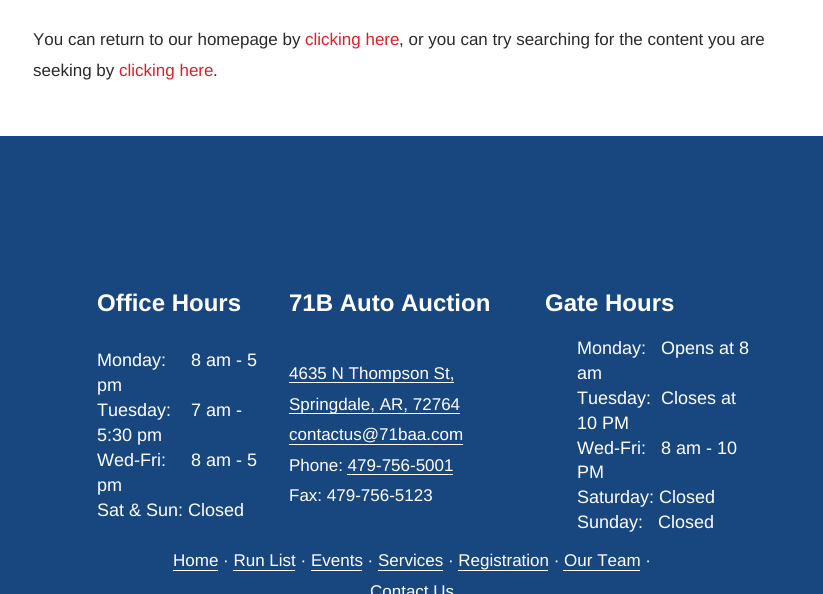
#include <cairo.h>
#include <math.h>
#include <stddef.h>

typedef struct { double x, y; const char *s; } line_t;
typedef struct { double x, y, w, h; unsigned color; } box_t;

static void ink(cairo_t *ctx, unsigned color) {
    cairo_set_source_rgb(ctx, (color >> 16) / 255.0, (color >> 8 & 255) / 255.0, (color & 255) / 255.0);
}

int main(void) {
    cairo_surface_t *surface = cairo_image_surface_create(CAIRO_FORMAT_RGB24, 823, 594);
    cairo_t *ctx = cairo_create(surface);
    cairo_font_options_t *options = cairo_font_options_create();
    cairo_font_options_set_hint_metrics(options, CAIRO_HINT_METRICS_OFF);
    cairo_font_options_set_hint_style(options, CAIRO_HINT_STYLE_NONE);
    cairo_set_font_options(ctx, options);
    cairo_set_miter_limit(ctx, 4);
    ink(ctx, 0xFFFFFF);
    cairo_paint(ctx);
    cairo_select_font_face(ctx, "Liberation Sans", CAIRO_FONT_SLANT_NORMAL, CAIRO_FONT_WEIGHT_NORMAL);
    cairo_set_font_size(ctx, 17);
    ink(ctx, 0x2A2A2A);
    cairo_move_to(ctx, 33, 45);
    cairo_show_text(ctx, "You can return to our homepage by");
    ink(ctx, 0xDE1F26);
    cairo_move_to(ctx, 305, 45);
    cairo_show_text(ctx, "clicking here");
    ink(ctx, 0x2A2A2A);
    cairo_move_to(ctx, 399, 45);
    cairo_show_text(ctx, ", or you can try searching for the content you are");
    cairo_move_to(ctx, 33, 76);
    cairo_show_text(ctx, "seeking by");
    ink(ctx, 0xDE1F26);
    cairo_move_to(ctx, 119, 76);
    cairo_show_text(ctx, "clicking here");
    ink(ctx, 0x2A2A2A);
    cairo_move_to(ctx, 213, 76);
    cairo_show_text(ctx, ".");
    ink(ctx, 0x184780);
    cairo_rectangle(ctx, 0, 136, 823, 458);
    cairo_fill(ctx);
    cairo_select_font_face(ctx, "Liberation Sans", CAIRO_FONT_SLANT_NORMAL, CAIRO_FONT_WEIGHT_BOLD);
    cairo_set_font_size(ctx, 24);
    ink(ctx, 0xFFFFFF);
    {
        static const line_t items[] = {
            {97, 311, "Office Hours"},
            {289, 311, "71B Auto Auction"},
            {545, 311, "Gate Hours"},
        };
        for (size_t i = 0; i < sizeof items / sizeof *items; i++) {
            cairo_move_to(ctx, items[i].x, items[i].y);
            cairo_show_text(ctx, items[i].s);
        }
    }
    cairo_select_font_face(ctx, "Liberation Sans", CAIRO_FONT_SLANT_NORMAL, CAIRO_FONT_WEIGHT_NORMAL);
    cairo_set_font_size(ctx, 18);
    {
        static const line_t items[] = {
            {97, 366, "Monday:     8 am - 5"},
            {97, 391, "pm"},
            {97, 416, "Tuesday:    7 am -"},
            {97, 441, "5:30 pm"},
            {97, 466, "Wed-Fri:     8 am - 5"},
            {97, 491, "pm"},
            {97, 516, "Sat & Sun: Closed"},
        };
        for (size_t i = 0; i < sizeof items / sizeof *items; i++) {
            cairo_move_to(ctx, items[i].x, items[i].y);
            cairo_show_text(ctx, items[i].s);
        }
    }
    cairo_rectangle(ctx, 289, 382, 165, 1);
    cairo_fill(ctx);
    cairo_set_font_size(ctx, 17);
    cairo_move_to(ctx, 289, 379);
    cairo_show_text(ctx, "4635 N Thompson St,");
    cairo_rectangle(ctx, 289, 413, 171, 1);
    cairo_fill(ctx);
    cairo_move_to(ctx, 289, 410);
    cairo_show_text(ctx, "Springdale, AR, 72764");
    cairo_move_to(ctx, 289, 440);
    cairo_show_text(ctx, "contactus@71baa.com");
    cairo_rectangle(ctx, 289, 444, 174, 1);
    cairo_fill(ctx);
    cairo_move_to(ctx, 289, 471);
    cairo_show_text(ctx, "Phone: 479-756-5001");
    cairo_rectangle(ctx, 347, 474, 106, 1);
    cairo_fill(ctx);
    cairo_move_to(ctx, 289, 501);
    cairo_show_text(ctx, "Fax: 479-756-5123");
    cairo_set_font_size(ctx, 18);
    {
        static const line_t items[] = {
            {577, 354, "Monday:   Opens at 8"},
            {577, 379, "am"},
            {577, 404, "Tuesday:  Closes at"},
            {577, 429, "10 PM"},
            {577, 454, "Wed-Fri:   8 am - 10"},
            {577, 478, "PM"},
            {577, 503, "Saturday: Closed"},
            {577, 528, "Sunday:   Closed"},
        };
        for (size_t i = 0; i < sizeof items / sizeof *items; i++) {
            cairo_move_to(ctx, items[i].x, items[i].y);
            cairo_show_text(ctx, items[i].s);
        }
    }
    cairo_set_font_size(ctx, 17);
    cairo_move_to(ctx, 173, 566);
    cairo_show_text(ctx, "Home · Run List · Events · Services · Registration · Our Team ·");
    {
        static const box_t items[] = {
            {173, 570, 45, 1, 0xFFFFFF},
            {233, 570, 62, 1, 0xFFFFFF},
            {311, 570, 51, 1, 0xFFFFFF},
            {378, 570, 65, 1, 0xFFFFFF},
            {458, 570, 90, 1, 0xFFFFFF},
            {563, 570, 77, 1, 0xFFFFFF},
        };
        for (size_t i = 0; i < sizeof items / sizeof *items; i++) {
            ink(ctx, items[i].color);
            cairo_rectangle(ctx, items[i].x, items[i].y, items[i].w, items[i].h);
            cairo_fill(ctx);
        }
    }
    cairo_move_to(ctx, 370, 597);
    cairo_show_text(ctx, "Contact Us");
    cairo_surface_write_to_png(surface, "image.png");
    cairo_font_options_destroy(options);
    cairo_destroy(ctx);
    cairo_surface_destroy(surface);
    return 0;
}
